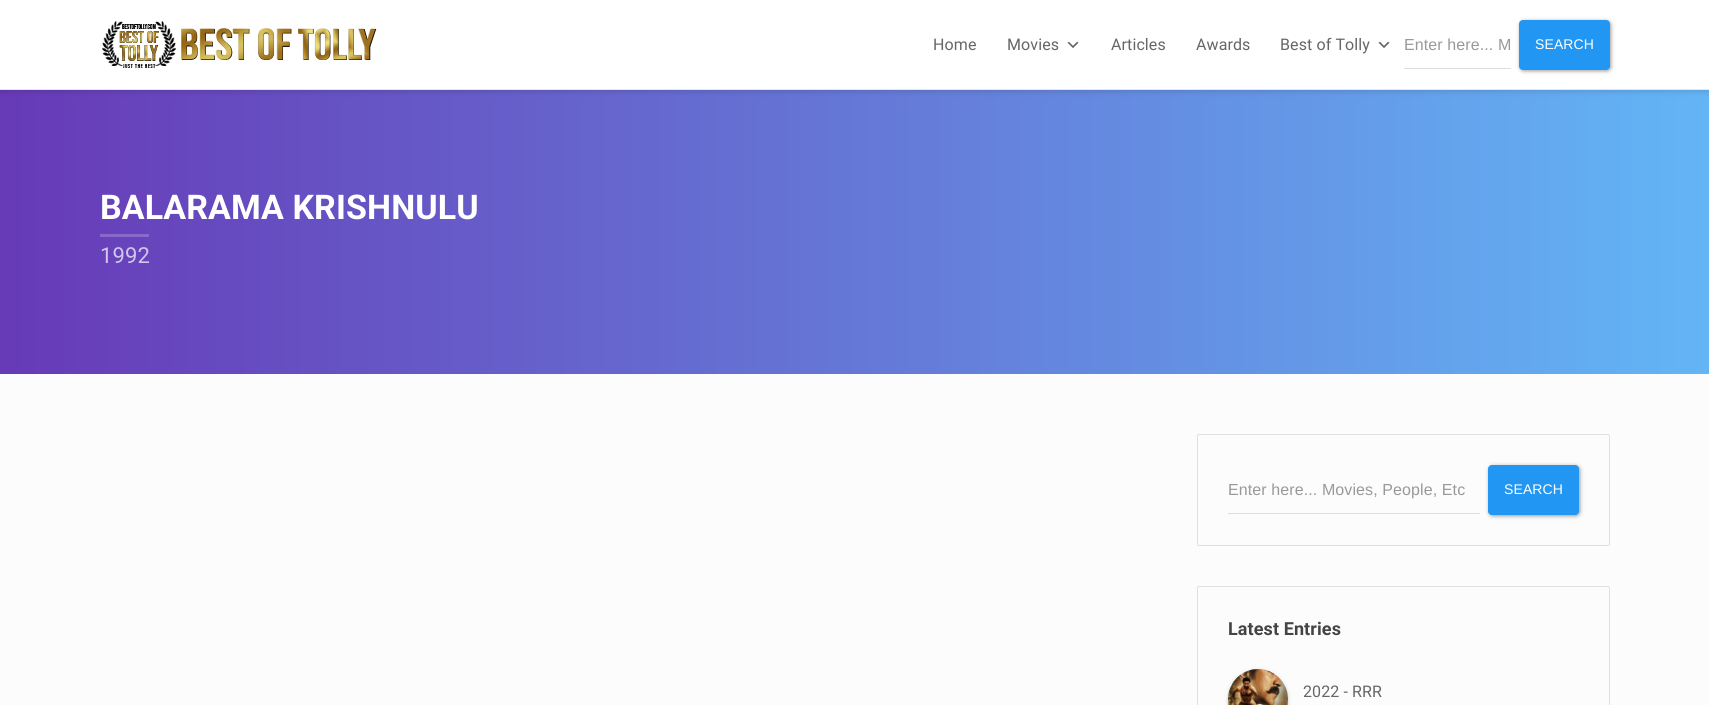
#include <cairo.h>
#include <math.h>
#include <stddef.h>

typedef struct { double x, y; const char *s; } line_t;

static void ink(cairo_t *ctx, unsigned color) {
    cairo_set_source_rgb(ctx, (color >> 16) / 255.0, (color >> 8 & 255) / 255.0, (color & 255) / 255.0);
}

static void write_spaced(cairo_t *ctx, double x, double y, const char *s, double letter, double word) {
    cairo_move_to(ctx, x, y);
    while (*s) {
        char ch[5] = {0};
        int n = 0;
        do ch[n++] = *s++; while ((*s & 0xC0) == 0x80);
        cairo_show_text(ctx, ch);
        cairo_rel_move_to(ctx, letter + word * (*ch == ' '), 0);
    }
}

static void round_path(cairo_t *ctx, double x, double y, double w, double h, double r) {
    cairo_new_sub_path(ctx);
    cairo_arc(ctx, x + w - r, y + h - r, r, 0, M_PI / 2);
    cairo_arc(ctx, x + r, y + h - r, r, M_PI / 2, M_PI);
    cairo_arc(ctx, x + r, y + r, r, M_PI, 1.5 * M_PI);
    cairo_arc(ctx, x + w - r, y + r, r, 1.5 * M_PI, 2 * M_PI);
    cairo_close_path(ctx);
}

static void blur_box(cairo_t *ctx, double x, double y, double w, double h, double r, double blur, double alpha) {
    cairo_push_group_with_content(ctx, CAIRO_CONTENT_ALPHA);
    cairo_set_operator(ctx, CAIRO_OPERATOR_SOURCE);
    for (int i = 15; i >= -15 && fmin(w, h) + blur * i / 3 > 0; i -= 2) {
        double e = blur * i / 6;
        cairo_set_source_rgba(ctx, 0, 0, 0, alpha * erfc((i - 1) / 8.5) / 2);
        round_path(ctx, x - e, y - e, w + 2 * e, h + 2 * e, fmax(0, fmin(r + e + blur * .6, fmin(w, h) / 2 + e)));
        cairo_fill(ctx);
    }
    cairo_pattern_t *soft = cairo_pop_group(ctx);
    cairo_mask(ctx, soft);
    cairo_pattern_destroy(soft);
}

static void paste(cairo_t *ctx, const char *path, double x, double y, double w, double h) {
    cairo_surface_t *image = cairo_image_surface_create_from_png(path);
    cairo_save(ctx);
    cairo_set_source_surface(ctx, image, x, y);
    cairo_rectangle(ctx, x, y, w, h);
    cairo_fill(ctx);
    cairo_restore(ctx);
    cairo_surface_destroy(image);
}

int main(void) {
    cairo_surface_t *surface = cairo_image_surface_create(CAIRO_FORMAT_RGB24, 1709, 705);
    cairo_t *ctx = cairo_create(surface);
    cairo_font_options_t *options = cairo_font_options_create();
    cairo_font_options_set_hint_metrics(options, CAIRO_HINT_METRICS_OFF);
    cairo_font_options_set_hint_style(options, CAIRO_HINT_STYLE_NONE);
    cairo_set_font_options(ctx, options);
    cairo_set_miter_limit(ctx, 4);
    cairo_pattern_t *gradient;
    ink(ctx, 0xFCFCFC);
    cairo_paint(ctx);
    gradient = cairo_pattern_create_linear(0, 232, 1709, 232);
    cairo_pattern_add_color_stop_rgba(gradient, 0, 0.404, 0.227, 0.718, 1);
    cairo_pattern_add_color_stop_rgba(gradient, 1, 0.388, 0.71, 0.965, 1);
    cairo_set_source(ctx, gradient);
    cairo_pattern_destroy(gradient);
    cairo_rectangle(ctx, 0, 90, 1709, 284);
    cairo_fill(ctx);
    ink(ctx, 0x000000);
    blur_box(ctx, 0, 2, 1709, 90, 0, 3, 0.12);
    ink(ctx, 0xFFFFFF);
    cairo_rectangle(ctx, 0, 0, 1709, 89);
    cairo_fill(ctx);
    ink(ctx, 0xE6E6E6);
    cairo_rectangle(ctx, 0, 89, 1709, 1);
    cairo_fill(ctx);
    paste(ctx, "media/1.png", 102, 21, 275, 47);
    cairo_select_font_face(ctx, "Roboto", CAIRO_FONT_SLANT_NORMAL, CAIRO_FONT_WEIGHT_NORMAL);
    cairo_set_font_size(ctx, 16);
    ink(ctx, 0x666666);
    write_spaced(ctx, 933, 50, "Home", 0.1, 0);
    write_spaced(ctx, 1007, 50, "Movies", 0.1, 0);
    paste(ctx, "media/2.png", 1067, 41, 12, 7);
    {
        static const line_t items[] = {
            {1111, 50, "Articles"},
            {1196, 50, "Awards"},
            {1280, 50, "Best of Tolly"},
        };
        for (size_t i = 0; i < sizeof items / sizeof *items; i++) {
            write_spaced(ctx, items[i].x, items[i].y, items[i].s, 0.1, 0);
        }
    }
    paste(ctx, "media/2.png", 1378, 41, 12, 7);
    ink(ctx, 0xDDDDDD);
    cairo_rectangle(ctx, 1404, 68, 107, 1);
    cairo_fill(ctx);
    cairo_select_font_face(ctx, "Liberation Sans", CAIRO_FONT_SLANT_NORMAL, CAIRO_FONT_WEIGHT_NORMAL);
    ink(ctx, 0x999999);
    write_spaced(ctx, 1404, 50, "Enter here... M", 0.1, 0);
    ink(ctx, 0x000000);
    blur_box(ctx, 1520, 21, 91, 50, 4, 2, 0.4);
    ink(ctx, 0x2196F3);
    round_path(ctx, 1519, 20, 91, 50, 4);
    cairo_fill(ctx);
    cairo_set_font_size(ctx, 14);
    ink(ctx, 0xFFFFFF);
    write_spaced(ctx, 1535, 49, "SEARCH", 0.1, 0);
    gradient = cairo_pattern_create_linear(0, 232, 1709, 232);
    cairo_pattern_add_color_stop_rgba(gradient, 0, 0.529, 0.388, 0.776, 1);
    cairo_pattern_add_color_stop_rgba(gradient, 1, 0.518, 0.773, 0.973, 1);
    cairo_set_source(ctx, gradient);
    cairo_pattern_destroy(gradient);
    cairo_rectangle(ctx, 100, 234, 49, 3);
    cairo_fill(ctx);
    cairo_select_font_face(ctx, "Roboto", CAIRO_FONT_SLANT_NORMAL, CAIRO_FONT_WEIGHT_BOLD);
    cairo_set_font_size(ctx, 34);
    ink(ctx, 0xFFFFFF);
    write_spaced(ctx, 100, 219, "BALARAMA KRISHNULU", 0.1, 0);
    cairo_select_font_face(ctx, "Roboto", CAIRO_FONT_SLANT_NORMAL, CAIRO_FONT_WEIGHT_NORMAL);
    cairo_set_font_size(ctx, 22);
    ink(ctx, 0xD1C7EB);
    write_spaced(ctx, 100, 263, "1992", 0.1, 0);
    round_path(ctx, 1197.5, 434.5, 412, 111, 1.5);
    ink(ctx, 0xE0E0E0);
    cairo_set_line_width(ctx, 1);
    cairo_stroke(ctx);
    ink(ctx, 0xDDDDDD);
    cairo_rectangle(ctx, 1228, 513, 252, 1);
    cairo_fill(ctx);
    cairo_select_font_face(ctx, "Liberation Sans", CAIRO_FONT_SLANT_NORMAL, CAIRO_FONT_WEIGHT_NORMAL);
    cairo_set_font_size(ctx, 16);
    ink(ctx, 0x999999);
    write_spaced(ctx, 1228, 495, "Enter here... Movies, People, Etc", 0.1, 0);
    ink(ctx, 0x000000);
    blur_box(ctx, 1489, 466, 91, 50, 4, 2, 0.4);
    ink(ctx, 0x2196F3);
    round_path(ctx, 1488, 465, 91, 50, 4);
    cairo_fill(ctx);
    cairo_set_font_size(ctx, 14);
    ink(ctx, 0xFFFFFF);
    write_spaced(ctx, 1504, 494, "SEARCH", 0.1, 0);
    round_path(ctx, 1197.5, 586.5, 412, 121, 1.5);
    ink(ctx, 0xE0E0E0);
    cairo_stroke(ctx);
    cairo_select_font_face(ctx, "Roboto", CAIRO_FONT_SLANT_NORMAL, CAIRO_FONT_WEIGHT_BOLD);
    cairo_set_font_size(ctx, 18);
    ink(ctx, 0x444444);
    write_spaced(ctx, 1228, 635, "Latest Entries", 0.1, 0);
    ink(ctx, 0x000000);
    blur_box(ctx, 1228, 670, 60, 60, 30, 2.5, 0.12);
    blur_box(ctx, 1228, 671, 60, 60, 30, 1, 0.14);
    paste(ctx, "media/3.png", 1228, 669, 60, 36);
    cairo_select_font_face(ctx, "Roboto", CAIRO_FONT_SLANT_NORMAL, CAIRO_FONT_WEIGHT_NORMAL);
    cairo_set_font_size(ctx, 16);
    ink(ctx, 0x666666);
    write_spaced(ctx, 1303, 697, "2022 - RRR", 0.1, 0);
    cairo_surface_write_to_png(surface, "image.png");
    cairo_font_options_destroy(options);
    cairo_destroy(ctx);
    cairo_surface_destroy(surface);
    return 0;
}
